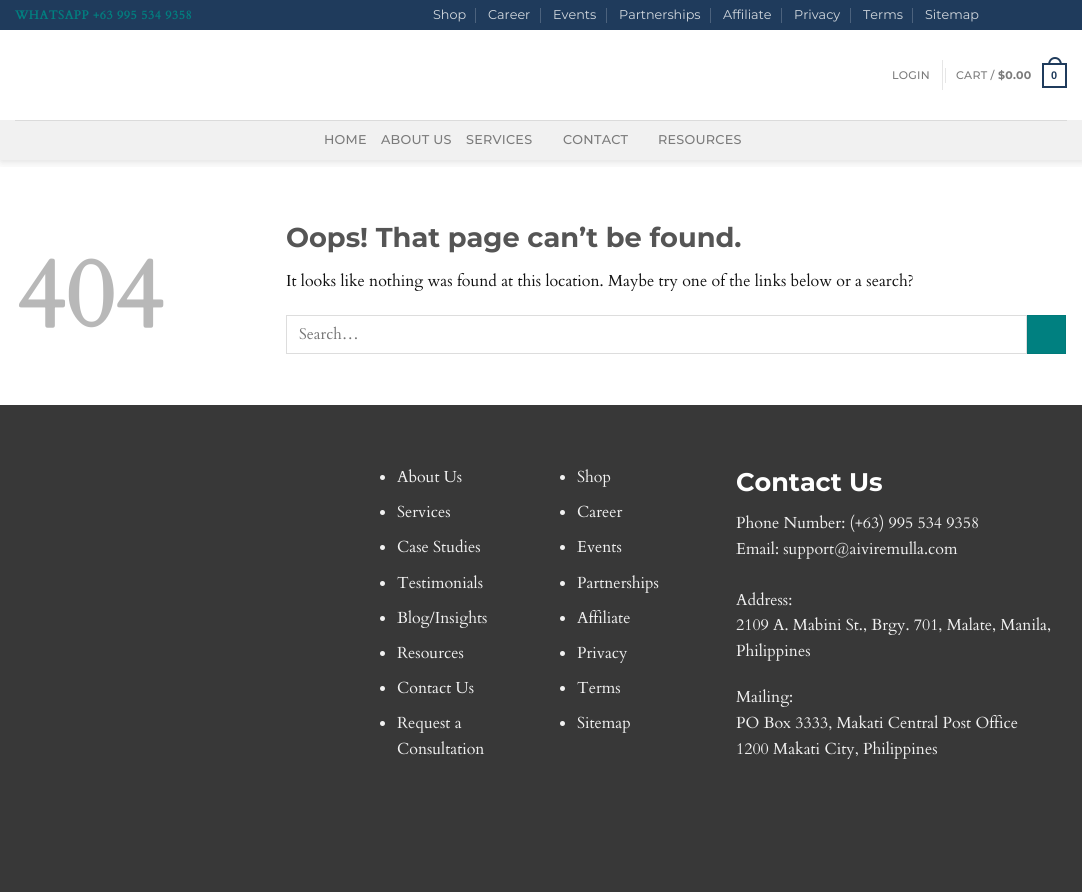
#include <cairo.h>
#include <math.h>
#include <stddef.h>

typedef struct { double x, y; const char *s; } line_t;

static void ink(cairo_t *ctx, unsigned color) {
    cairo_set_source_rgb(ctx, (color >> 16) / 255.0, (color >> 8 & 255) / 255.0, (color & 255) / 255.0);
}

static void write_spaced(cairo_t *ctx, double x, double y, const char *s, double letter, double word) {
    cairo_move_to(ctx, x, y);
    while (*s) {
        char ch[5] = {0};
        int n = 0;
        do ch[n++] = *s++; while ((*s & 0xC0) == 0x80);
        cairo_show_text(ctx, ch);
        cairo_rel_move_to(ctx, letter + word * (*ch == ' '), 0);
    }
}

static void round_path(cairo_t *ctx, double x, double y, double w, double h, double r) {
    cairo_new_sub_path(ctx);
    cairo_arc(ctx, x + w - r, y + h - r, r, 0, M_PI / 2);
    cairo_arc(ctx, x + r, y + h - r, r, M_PI / 2, M_PI);
    cairo_arc(ctx, x + r, y + r, r, M_PI, 1.5 * M_PI);
    cairo_arc(ctx, x + w - r, y + r, r, 1.5 * M_PI, 2 * M_PI);
    cairo_close_path(ctx);
}

static void blur_box(cairo_t *ctx, double x, double y, double w, double h, double r, double blur, double alpha) {
    cairo_push_group_with_content(ctx, CAIRO_CONTENT_ALPHA);
    cairo_set_operator(ctx, CAIRO_OPERATOR_SOURCE);
    for (int i = 15; i >= -15 && fmin(w, h) + blur * i / 3 > 0; i -= 2) {
        double e = blur * i / 6;
        cairo_set_source_rgba(ctx, 0, 0, 0, alpha * erfc((i - 1) / 8.5) / 2);
        round_path(ctx, x - e, y - e, w + 2 * e, h + 2 * e, fmax(0, fmin(r + e + blur * .6, fmin(w, h) / 2 + e)));
        cairo_fill(ctx);
    }
    cairo_pattern_t *soft = cairo_pop_group(ctx);
    cairo_mask(ctx, soft);
    cairo_pattern_destroy(soft);
}

int main(void) {
    cairo_surface_t *surface = cairo_image_surface_create(CAIRO_FORMAT_RGB24, 1082, 892);
    cairo_t *ctx = cairo_create(surface);
    cairo_font_options_t *options = cairo_font_options_create();
    cairo_font_options_set_hint_metrics(options, CAIRO_HINT_METRICS_OFF);
    cairo_font_options_set_hint_style(options, CAIRO_HINT_STYLE_NONE);
    cairo_set_font_options(ctx, options);
    cairo_set_miter_limit(ctx, 4);
    ink(ctx, 0xFFFFFF);
    cairo_paint(ctx);
    cairo_save(ctx);
    cairo_rectangle(ctx, 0, 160, 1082, 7);
    cairo_clip(ctx);
    ink(ctx, 0x000000);
    blur_box(ctx, 1, 1, 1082, 160, 0, 5, 0.15);
    cairo_restore(ctx);
    ink(ctx, 0x1F3B5C);
    cairo_rectangle(ctx, 0, 0, 1082, 30);
    cairo_fill(ctx);
    cairo_select_font_face(ctx, "Cardo", CAIRO_FONT_SLANT_NORMAL, CAIRO_FONT_WEIGHT_BOLD);
    cairo_set_font_size(ctx, 12);
    ink(ctx, 0x008080);
    write_spaced(ctx, 15, 19, "WHATSAPP +63 995 534 9358", 0.6, 0);
    cairo_select_font_face(ctx, "Montserrat", CAIRO_FONT_SLANT_NORMAL, CAIRO_FONT_WEIGHT_NORMAL);
    cairo_set_font_size(ctx, 12.75);
    ink(ctx, 0xD2D8DE);
    cairo_move_to(ctx, 433, 19);
    cairo_show_text(ctx, "Shop");
    ink(ctx, 0x4C627D);
    cairo_rectangle(ctx, 475, 8, 1, 15);
    cairo_fill(ctx);
    ink(ctx, 0xD2D8DE);
    cairo_move_to(ctx, 488, 19);
    cairo_show_text(ctx, "Career");
    ink(ctx, 0x4C627D);
    cairo_rectangle(ctx, 540, 8, 1, 15);
    cairo_fill(ctx);
    ink(ctx, 0xD2D8DE);
    cairo_move_to(ctx, 553, 19);
    cairo_show_text(ctx, "Events");
    ink(ctx, 0x4C627D);
    cairo_rectangle(ctx, 606, 8, 1, 15);
    cairo_fill(ctx);
    ink(ctx, 0xD2D8DE);
    cairo_move_to(ctx, 619, 19);
    cairo_show_text(ctx, "Partnerships");
    ink(ctx, 0x4C627D);
    cairo_rectangle(ctx, 710, 8, 1, 15);
    cairo_fill(ctx);
    ink(ctx, 0xD2D8DE);
    cairo_move_to(ctx, 723, 19);
    cairo_show_text(ctx, "Affiliate");
    ink(ctx, 0x4C627D);
    cairo_rectangle(ctx, 781, 8, 1, 15);
    cairo_fill(ctx);
    ink(ctx, 0xD2D8DE);
    cairo_move_to(ctx, 794, 19);
    cairo_show_text(ctx, "Privacy");
    ink(ctx, 0x4C627D);
    cairo_rectangle(ctx, 850, 8, 1, 15);
    cairo_fill(ctx);
    ink(ctx, 0xD2D8DE);
    cairo_move_to(ctx, 863, 19);
    cairo_show_text(ctx, "Terms");
    ink(ctx, 0x4C627D);
    cairo_rectangle(ctx, 912, 8, 1, 15);
    cairo_fill(ctx);
    ink(ctx, 0xD2D8DE);
    cairo_move_to(ctx, 925, 19);
    cairo_show_text(ctx, "Sitemap");
    cairo_select_font_face(ctx, "Montserrat Medium", CAIRO_FONT_SLANT_NORMAL, CAIRO_FONT_WEIGHT_NORMAL);
    cairo_set_font_size(ctx, 11);
    ink(ctx, 0x7B7B7B);
    write_spaced(ctx, 892, 79, "LOGIN", 0.25, 0);
    ink(ctx, 0xE6E6E6);
    cairo_rectangle(ctx, 942, 60, 1, 30);
    cairo_fill(ctx);
    cairo_rectangle(ctx, 945, 68, 1, 15);
    cairo_fill(ctx);
    ink(ctx, 0x7B7B7B);
    write_spaced(ctx, 956, 79, "CART /", 0.25, 0);
    cairo_select_font_face(ctx, "Montserrat", CAIRO_FONT_SLANT_NORMAL, CAIRO_FONT_WEIGHT_BOLD);
    write_spaced(ctx, 998, 79, "$0.00", 0.25, 0);
    cairo_rectangle(ctx, 1043, 64, 23, 23);
    ink(ctx, 0x1F3B5C);
    cairo_stroke(ctx);
    cairo_set_fill_rule(ctx, CAIRO_FILL_RULE_EVEN_ODD);
    cairo_new_path(ctx);
    cairo_move_to(ctx, 1055, 57);
    cairo_curve_to(ctx, 1059.5, 57, 1062, 61, 1062, 65);
    cairo_line_to(ctx, 1048, 65);
    cairo_curve_to(ctx, 1048, 61, 1050.5, 57, 1055, 57);
    cairo_close_path(ctx);
    cairo_move_to(ctx, 1055, 59);
    cairo_curve_to(ctx, 1058.5, 59, 1060, 62, 1060, 65);
    cairo_line_to(ctx, 1050, 65);
    cairo_curve_to(ctx, 1050, 62, 1051.5, 59, 1055, 59);
    cairo_close_path(ctx);
    cairo_fill(ctx);
    cairo_select_font_face(ctx, "Liberation Sans", CAIRO_FONT_SLANT_NORMAL, CAIRO_FONT_WEIGHT_BOLD);
    write_spaced(ctx, 1051, 79, "0", 0.25, 0);
    ink(ctx, 0xF1F1F1);
    cairo_rectangle(ctx, 0, 120, 1082, 40);
    cairo_fill(ctx);
    ink(ctx, 0xDBDBDB);
    cairo_rectangle(ctx, 15, 120, 1052, 1);
    cairo_fill(ctx);
    cairo_select_font_face(ctx, "Montserrat Medium", CAIRO_FONT_SLANT_NORMAL, CAIRO_FONT_WEIGHT_NORMAL);
    cairo_set_font_size(ctx, 12.75);
    ink(ctx, 0x7B7B7B);
    {
        static const line_t items[] = {
            {324, 144, "HOME"},
            {381, 144, "ABOUT US"},
            {466, 144, "SERVICES"},
            {563, 144, "CONTACT"},
            {658, 144, "RESOURCES"},
        };
        for (size_t i = 0; i < sizeof items / sizeof *items; i++) {
            write_spaced(ctx, items[i].x, items[i].y, items[i].s, 0.25, 0);
        }
    }
    cairo_select_font_face(ctx, "Cardo", CAIRO_FONT_SLANT_NORMAL, CAIRO_FONT_WEIGHT_BOLD);
    cairo_set_font_size(ctx, 96);
    ink(ctx, 0xB8B8B8);
    cairo_move_to(ctx, 16, 326);
    cairo_show_text(ctx, "404");
    cairo_select_font_face(ctx, "Montserrat", CAIRO_FONT_SLANT_NORMAL, CAIRO_FONT_WEIGHT_BOLD);
    cairo_set_font_size(ctx, 27.25);
    ink(ctx, 0x555555);
    cairo_move_to(ctx, 286, 247);
    cairo_show_text(ctx, "Oops! That page can’t be found.");
    cairo_select_font_face(ctx, "Cardo", CAIRO_FONT_SLANT_NORMAL, CAIRO_FONT_WEIGHT_NORMAL);
    cairo_set_font_size(ctx, 16);
    ink(ctx, 0x111111);
    cairo_move_to(ctx, 286, 286);
    cairo_show_text(ctx, "It looks like nothing was found at this location. Maybe try one of the links below or a search?");
    cairo_rectangle(ctx, 286.5, 315.5, 740, 38);
    ink(ctx, 0xDDDDDD);
    cairo_set_line_width(ctx, 1);
    cairo_stroke(ctx);
    cairo_set_font_size(ctx, 15.5);
    ink(ctx, 0x757575);
    cairo_move_to(ctx, 299, 339);
    cairo_show_text(ctx, "Search…");
    ink(ctx, 0x008080);
    cairo_rectangle(ctx, 1027.5, 315.5, 38, 38);
    cairo_fill_preserve(ctx);
    ink(ctx, 0x007A7A);
    cairo_stroke(ctx);
    ink(ctx, 0x383838);
    cairo_rectangle(ctx, 0, 405, 1082, 487);
    cairo_fill(ctx);
    ink(ctx, 0xF1F1F1);
    cairo_arc(ctx, 382.5, 477.5, 2.5, 0, 2 * M_PI);
    cairo_fill(ctx);
    cairo_set_font_size(ctx, 16);
    cairo_move_to(ctx, 397, 482);
    cairo_show_text(ctx, "About Us");
    cairo_new_path(ctx);
    cairo_arc(ctx, 382.5, 512.5, 2.5, 0, 2 * M_PI);
    cairo_fill(ctx);
    cairo_move_to(ctx, 397, 517);
    cairo_show_text(ctx, "Services");
    cairo_new_path(ctx);
    cairo_arc(ctx, 382.5, 547.5, 2.5, 0, 2 * M_PI);
    cairo_fill(ctx);
    cairo_move_to(ctx, 397, 552);
    cairo_show_text(ctx, "Case Studies");
    cairo_new_path(ctx);
    cairo_arc(ctx, 382.5, 583.5, 2.5, 0, 2 * M_PI);
    cairo_fill(ctx);
    cairo_move_to(ctx, 397, 588);
    cairo_show_text(ctx, "Testimonials");
    cairo_new_path(ctx);
    cairo_arc(ctx, 382.5, 618.5, 2.5, 0, 2 * M_PI);
    cairo_fill(ctx);
    cairo_move_to(ctx, 397, 623);
    cairo_show_text(ctx, "Blog/Insights");
    cairo_new_path(ctx);
    cairo_arc(ctx, 382.5, 653.5, 2.5, 0, 2 * M_PI);
    cairo_fill(ctx);
    cairo_move_to(ctx, 397, 658);
    cairo_show_text(ctx, "Resources");
    cairo_new_path(ctx);
    cairo_arc(ctx, 382.5, 688.5, 2.5, 0, 2 * M_PI);
    cairo_fill(ctx);
    cairo_move_to(ctx, 397, 693);
    cairo_show_text(ctx, "Contact Us");
    cairo_new_path(ctx);
    cairo_arc(ctx, 382.5, 723.5, 2.5, 0, 2 * M_PI);
    cairo_fill(ctx);
    cairo_move_to(ctx, 397, 728);
    cairo_show_text(ctx, "Request a");
    cairo_move_to(ctx, 397, 754);
    cairo_show_text(ctx, "Consultation");
    cairo_new_path(ctx);
    cairo_arc(ctx, 562.5, 477.5, 2.5, 0, 2 * M_PI);
    cairo_fill(ctx);
    cairo_move_to(ctx, 577, 482);
    cairo_show_text(ctx, "Shop");
    cairo_new_path(ctx);
    cairo_arc(ctx, 562.5, 512.5, 2.5, 0, 2 * M_PI);
    cairo_fill(ctx);
    cairo_move_to(ctx, 577, 517);
    cairo_show_text(ctx, "Career");
    cairo_new_path(ctx);
    cairo_arc(ctx, 562.5, 547.5, 2.5, 0, 2 * M_PI);
    cairo_fill(ctx);
    cairo_move_to(ctx, 577, 552);
    cairo_show_text(ctx, "Events");
    cairo_new_path(ctx);
    cairo_arc(ctx, 562.5, 583.5, 2.5, 0, 2 * M_PI);
    cairo_fill(ctx);
    cairo_move_to(ctx, 577, 588);
    cairo_show_text(ctx, "Partnerships");
    cairo_new_path(ctx);
    cairo_arc(ctx, 562.5, 618.5, 2.5, 0, 2 * M_PI);
    cairo_fill(ctx);
    cairo_move_to(ctx, 577, 623);
    cairo_show_text(ctx, "Affiliate");
    cairo_new_path(ctx);
    cairo_arc(ctx, 562.5, 653.5, 2.5, 0, 2 * M_PI);
    cairo_fill(ctx);
    cairo_move_to(ctx, 577, 658);
    cairo_show_text(ctx, "Privacy");
    cairo_new_path(ctx);
    cairo_arc(ctx, 562.5, 688.5, 2.5, 0, 2 * M_PI);
    cairo_fill(ctx);
    cairo_move_to(ctx, 577, 693);
    cairo_show_text(ctx, "Terms");
    cairo_new_path(ctx);
    cairo_arc(ctx, 562.5, 723.5, 2.5, 0, 2 * M_PI);
    cairo_fill(ctx);
    cairo_move_to(ctx, 577, 728);
    cairo_show_text(ctx, "Sitemap");
    cairo_select_font_face(ctx, "Montserrat", CAIRO_FONT_SLANT_NORMAL, CAIRO_FONT_WEIGHT_BOLD);
    cairo_set_font_size(ctx, 25.5);
    ink(ctx, 0xFFFFFF);
    cairo_move_to(ctx, 736, 491);
    cairo_show_text(ctx, "Contact Us");
    cairo_select_font_face(ctx, "Cardo", CAIRO_FONT_SLANT_NORMAL, CAIRO_FONT_WEIGHT_NORMAL);
    cairo_set_font_size(ctx, 16);
    ink(ctx, 0xF1F1F1);
    {
        static const line_t items[] = {
            {736, 528, "Phone Number: (+63) 995 534 9358"},
            {736, 554, "Email: support@aiviremulla.com"},
            {736, 605, "Address:"},
            {736, 630, "2109 A. Mabini St., Brgy. 701, Malate, Manila,"},
            {736, 656, "Philippines"},
            {736, 702, "Mailing:"},
            {736, 728, "PO Box 3333, Makati Central Post Office"},
            {736, 754, "1200 Makati City, Philippines"},
        };
        for (size_t i = 0; i < sizeof items / sizeof *items; i++) {
            cairo_move_to(ctx, items[i].x, items[i].y);
            cairo_show_text(ctx, items[i].s);
        }
    }
    cairo_surface_write_to_png(surface, "image.png");
    cairo_font_options_destroy(options);
    cairo_destroy(ctx);
    cairo_surface_destroy(surface);
    return 0;
}
